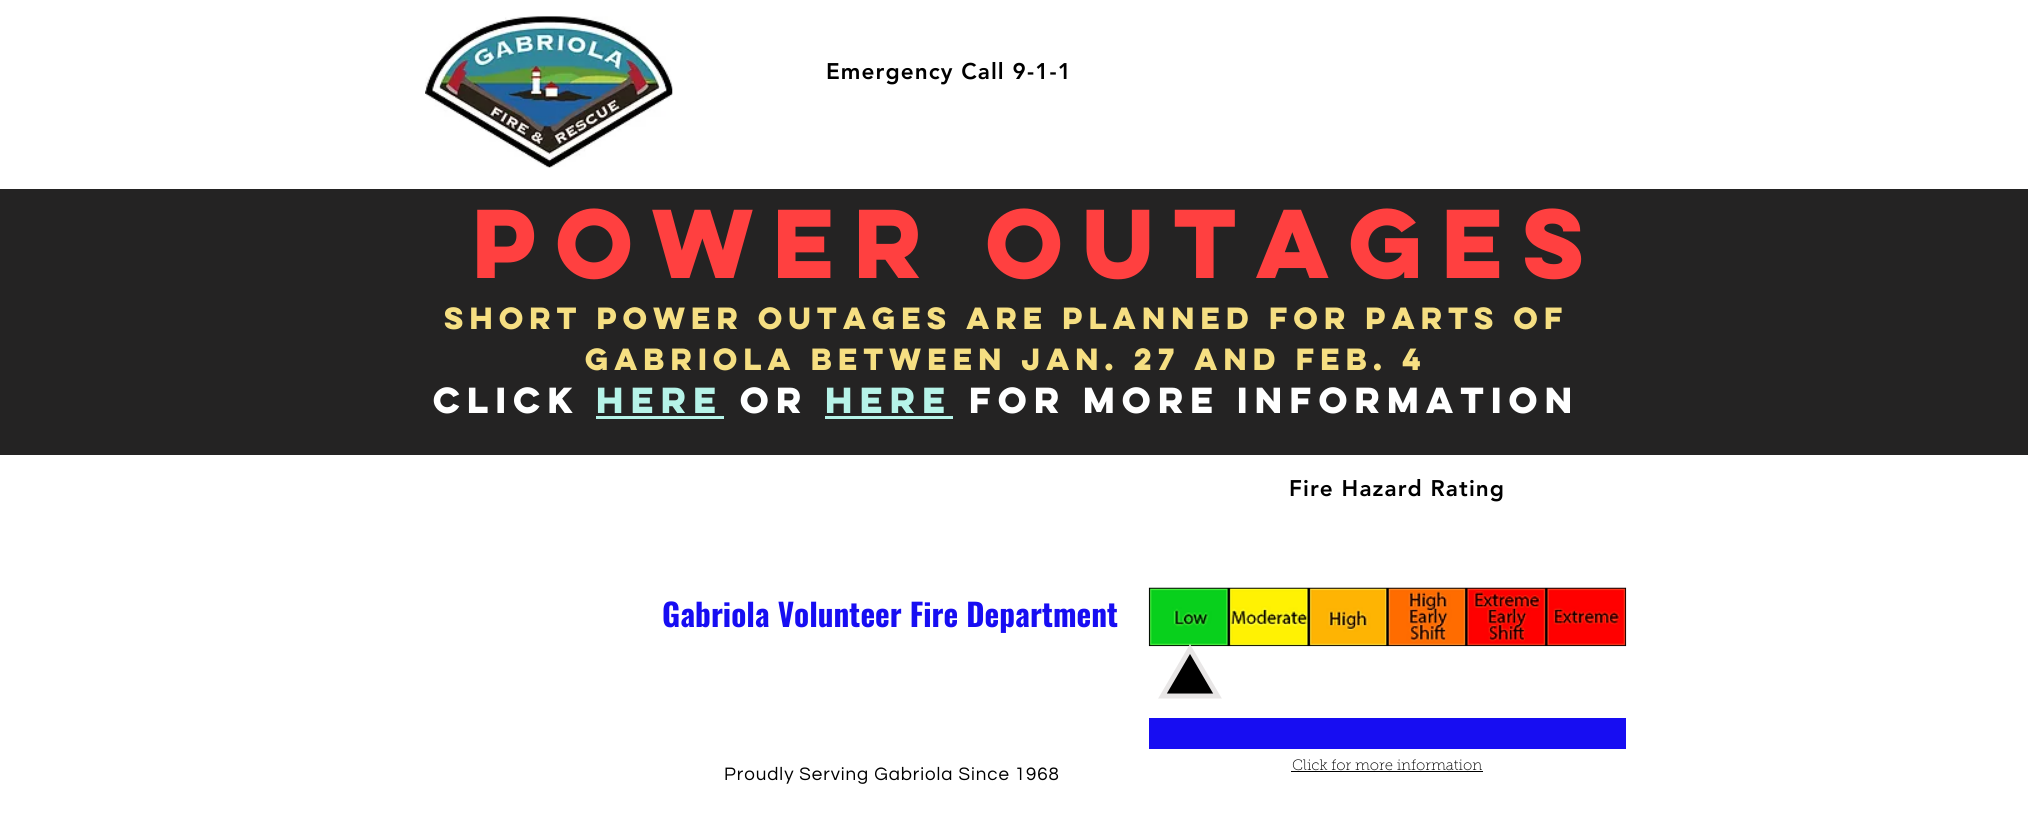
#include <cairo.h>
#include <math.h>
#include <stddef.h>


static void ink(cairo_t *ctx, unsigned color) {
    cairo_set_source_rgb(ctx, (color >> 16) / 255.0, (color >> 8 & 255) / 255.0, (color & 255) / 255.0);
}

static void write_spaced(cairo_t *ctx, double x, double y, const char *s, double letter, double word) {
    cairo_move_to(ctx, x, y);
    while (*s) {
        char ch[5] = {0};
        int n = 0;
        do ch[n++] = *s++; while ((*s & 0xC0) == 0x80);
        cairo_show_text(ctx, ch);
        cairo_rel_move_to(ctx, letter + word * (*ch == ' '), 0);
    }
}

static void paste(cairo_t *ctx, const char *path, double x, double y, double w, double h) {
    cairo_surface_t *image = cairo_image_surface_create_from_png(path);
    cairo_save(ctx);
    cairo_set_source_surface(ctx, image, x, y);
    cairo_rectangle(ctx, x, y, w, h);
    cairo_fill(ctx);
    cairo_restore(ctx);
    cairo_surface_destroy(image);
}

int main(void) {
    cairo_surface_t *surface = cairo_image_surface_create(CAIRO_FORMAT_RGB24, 2028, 815);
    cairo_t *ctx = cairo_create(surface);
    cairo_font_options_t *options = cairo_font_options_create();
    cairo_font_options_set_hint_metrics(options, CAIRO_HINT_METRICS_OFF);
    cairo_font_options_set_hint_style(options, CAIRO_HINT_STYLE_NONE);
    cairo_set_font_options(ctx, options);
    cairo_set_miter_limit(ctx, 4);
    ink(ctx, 0xFFFFFF);
    cairo_paint(ctx);
    paste(ctx, "media/1.png", 425, 16, 248, 152);
    cairo_select_font_face(ctx, "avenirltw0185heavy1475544 Black", CAIRO_FONT_SLANT_NORMAL, CAIRO_FONT_WEIGHT_NORMAL);
    cairo_set_font_size(ctx, 22.5);
    ink(ctx, 0x000000);
    write_spaced(ctx, 826, 79, "Emergency Call 9-1-1", 1.1, 0);
    ink(ctx, 0x242323);
    cairo_rectangle(ctx, 0, 189, 2028, 266);
    cairo_fill(ctx);
    cairo_select_font_face(ctx, "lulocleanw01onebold", CAIRO_FONT_SLANT_NORMAL, CAIRO_FONT_WEIGHT_BOLD);
    cairo_set_font_size(ctx, 87.5);
    ink(ctx, 0xFF4040);
    cairo_move_to(ctx, 472, 278);
    cairo_show_text(ctx, "POWER OUTAGES");
    cairo_set_font_size(ctx, 27.5);
    ink(ctx, 0xF6DF82);
    cairo_move_to(ctx, 444, 329);
    cairo_show_text(ctx, "Short power outages are planned for parts of");
    cairo_move_to(ctx, 585, 370);
    cairo_show_text(ctx, "Gabriola between Jan. 27 and Feb. 4");
    cairo_set_font_size(ctx, 32.5);
    ink(ctx, 0xFFFFFF);
    cairo_move_to(ctx, 433, 413);
    cairo_show_text(ctx, "CLICK");
    ink(ctx, 0xB6F3E8);
    cairo_move_to(ctx, 596, 413);
    cairo_show_text(ctx, "HERE");
    cairo_rectangle(ctx, 596, 416, 128, 3);
    cairo_fill(ctx);
    ink(ctx, 0xFFFFFF);
    cairo_move_to(ctx, 740, 413);
    cairo_show_text(ctx, "or");
    ink(ctx, 0xB6F3E8);
    cairo_move_to(ctx, 825, 413);
    cairo_show_text(ctx, "Here");
    cairo_rectangle(ctx, 825, 416, 128, 3);
    cairo_fill(ctx);
    ink(ctx, 0xFFFFFF);
    cairo_move_to(ctx, 969, 413);
    cairo_show_text(ctx, "FOR more INFORMATION");
    cairo_select_font_face(ctx, "avenirltw0185heavy1475544 Black", CAIRO_FONT_SLANT_NORMAL, CAIRO_FONT_WEIGHT_NORMAL);
    cairo_set_font_size(ctx, 22.5);
    ink(ctx, 0x000000);
    write_spaced(ctx, 1289, 496, "Fire Hazard Rating", 1.1, 0);
    cairo_select_font_face(ctx, "Oswald", CAIRO_FONT_SLANT_NORMAL, CAIRO_FONT_WEIGHT_BOLD);
    cairo_set_font_size(ctx, 31.25);
    ink(ctx, 0x170DF2);
    cairo_move_to(ctx, 662, 627);
    cairo_show_text(ctx, "Gabriola Volunteer Fire Department");
    paste(ctx, "media/2.png", 1148, 587, 479, 60);
    ink(ctx, 0x000000);
    cairo_new_path(ctx);
    cairo_move_to(ctx, 1190, 649);
    cairo_line_to(ctx, 1218, 696);
    cairo_line_to(ctx, 1162, 696);
    cairo_close_path(ctx);
    cairo_fill(ctx);
    cairo_new_path(ctx);
    cairo_move_to(ctx, 1190, 649);
    cairo_line_to(ctx, 1217.5, 696);
    cairo_line_to(ctx, 1162.5, 696);
    cairo_close_path(ctx);
    ink(ctx, 0xE8E6E6);
    cairo_set_line_width(ctx, 5);
    cairo_stroke(ctx);
    ink(ctx, 0x170DF2);
    cairo_rectangle(ctx, 1149, 718, 477, 31);
    cairo_fill(ctx);
    cairo_select_font_face(ctx, "Questrial", CAIRO_FONT_SLANT_NORMAL, CAIRO_FONT_WEIGHT_NORMAL);
    cairo_set_font_size(ctx, 18.75);
    ink(ctx, 0x000000);
    write_spaced(ctx, 724, 780, "Proudly Serving Gabriola Since 1968", 0.95, 0);
    cairo_select_font_face(ctx, "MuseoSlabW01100 Thin", CAIRO_FONT_SLANT_NORMAL, CAIRO_FONT_WEIGHT_NORMAL);
    cairo_set_font_size(ctx, 15);
    cairo_move_to(ctx, 1292, 770);
    cairo_show_text(ctx, "Click for more information");
    cairo_rectangle(ctx, 1291, 771, 192, 1);
    cairo_fill(ctx);
    cairo_surface_write_to_png(surface, "image.png");
    cairo_font_options_destroy(options);
    cairo_destroy(ctx);
    cairo_surface_destroy(surface);
    return 0;
}
